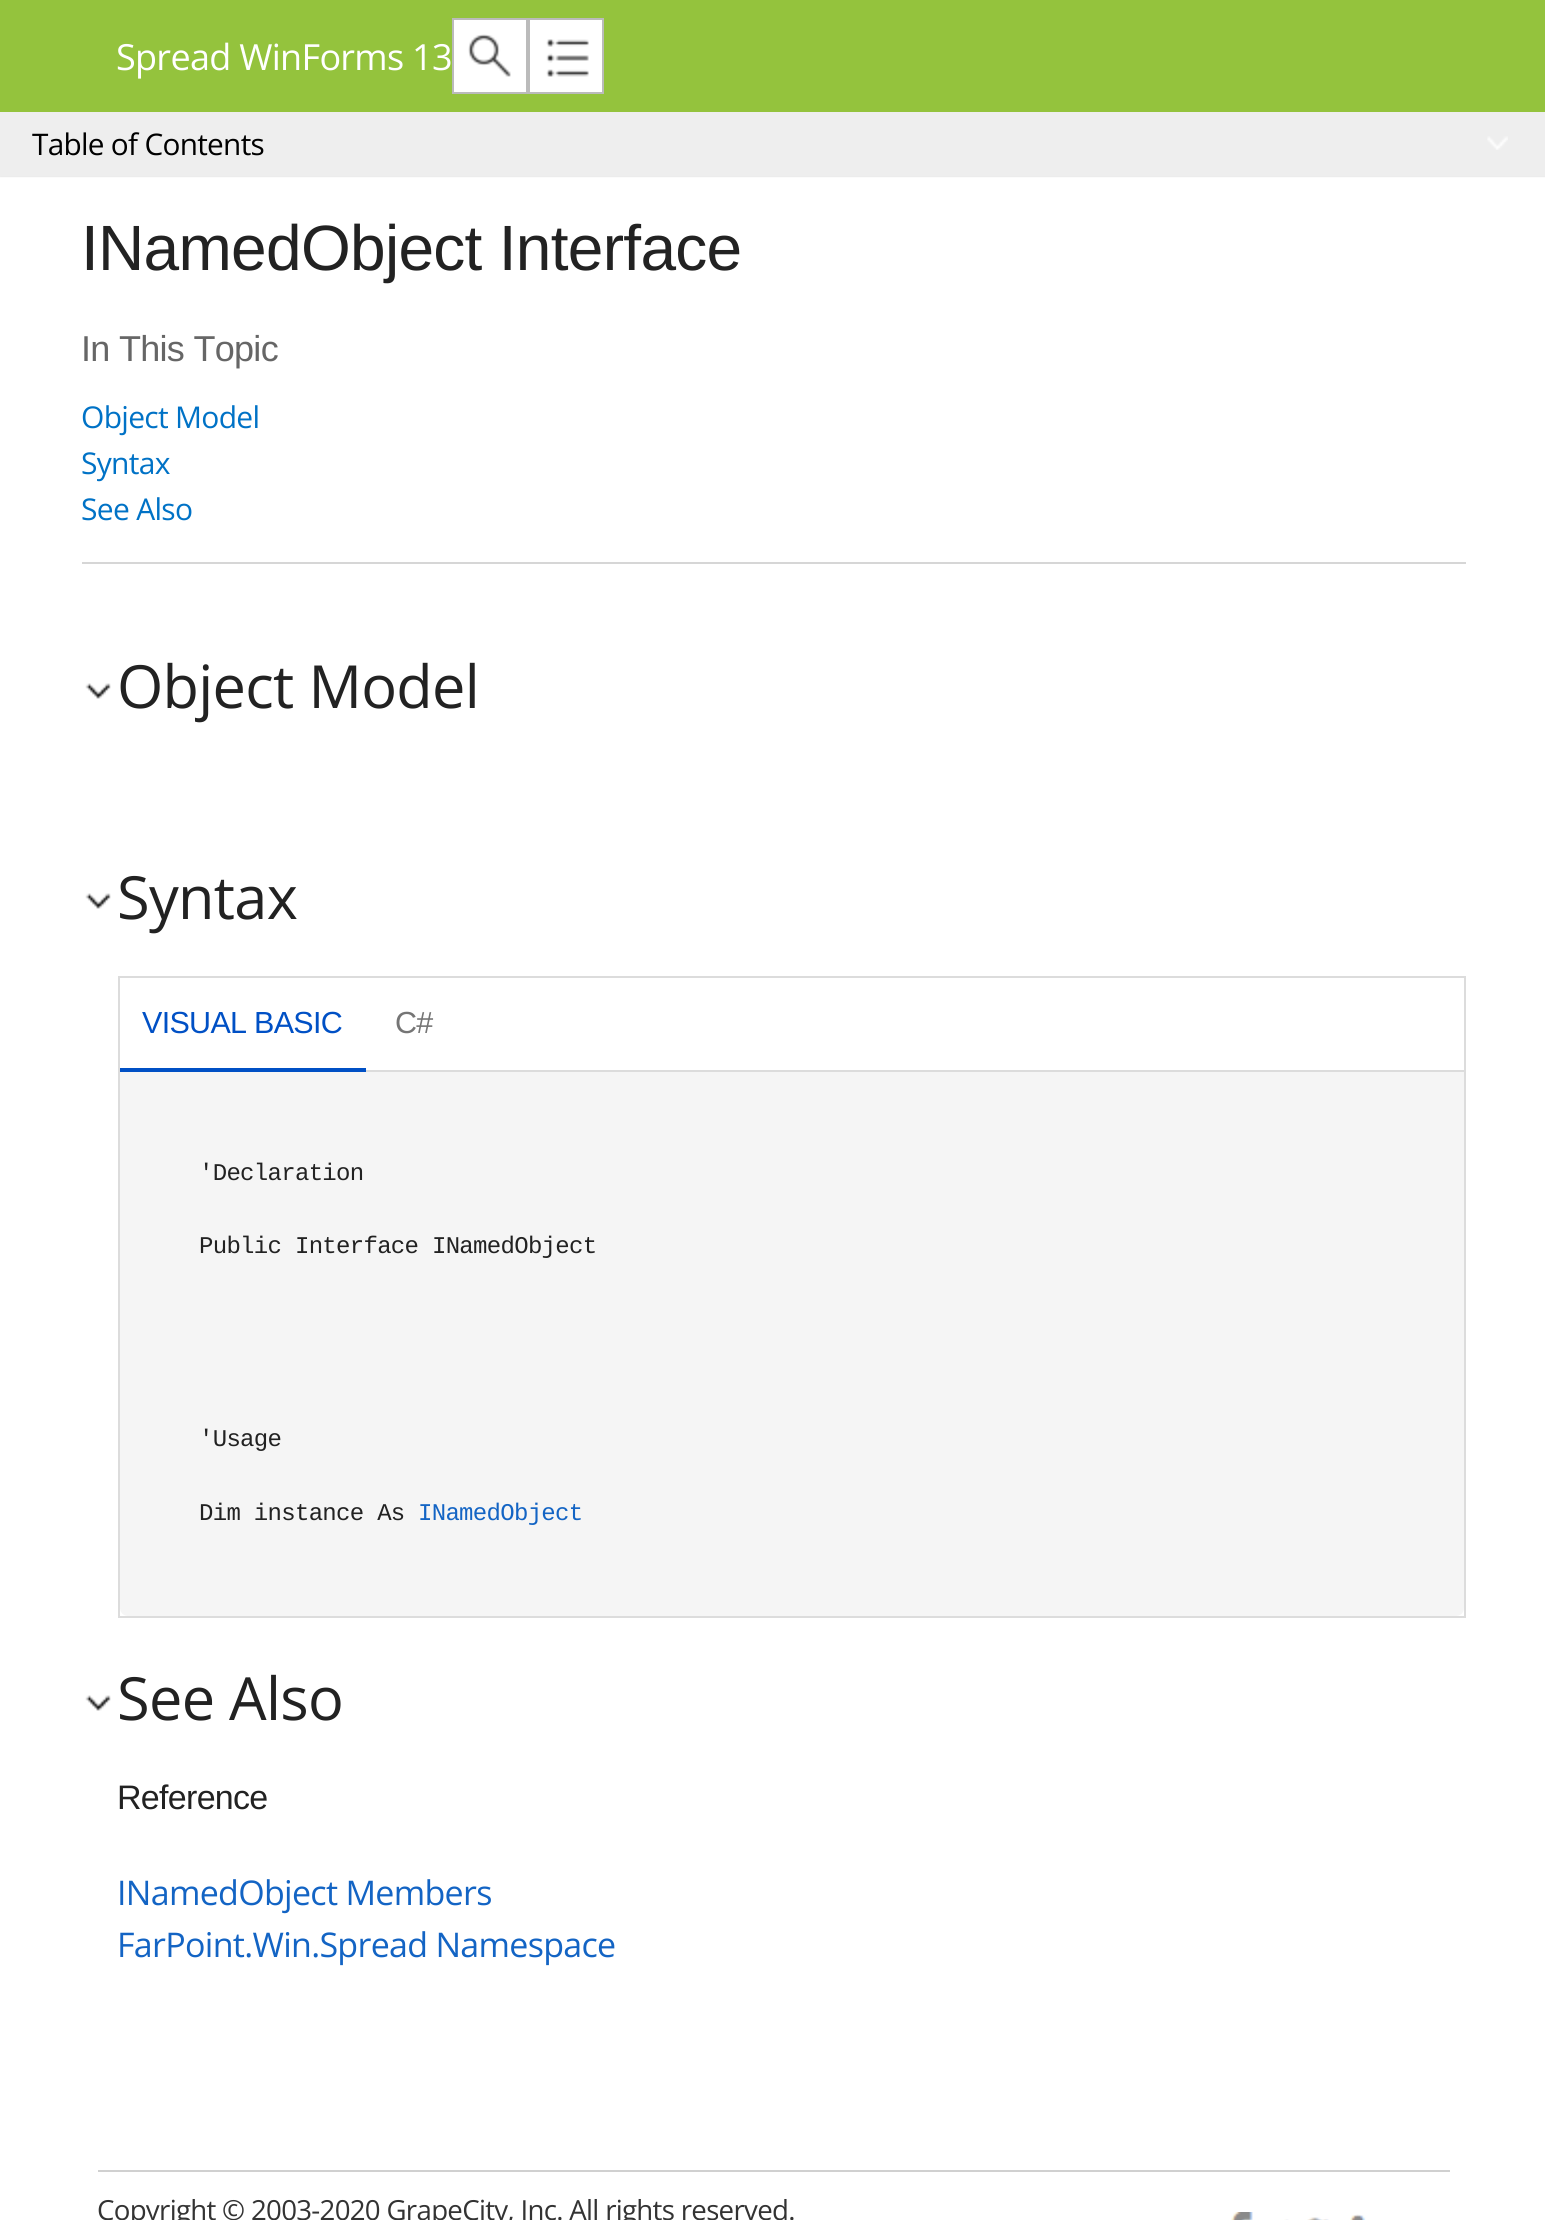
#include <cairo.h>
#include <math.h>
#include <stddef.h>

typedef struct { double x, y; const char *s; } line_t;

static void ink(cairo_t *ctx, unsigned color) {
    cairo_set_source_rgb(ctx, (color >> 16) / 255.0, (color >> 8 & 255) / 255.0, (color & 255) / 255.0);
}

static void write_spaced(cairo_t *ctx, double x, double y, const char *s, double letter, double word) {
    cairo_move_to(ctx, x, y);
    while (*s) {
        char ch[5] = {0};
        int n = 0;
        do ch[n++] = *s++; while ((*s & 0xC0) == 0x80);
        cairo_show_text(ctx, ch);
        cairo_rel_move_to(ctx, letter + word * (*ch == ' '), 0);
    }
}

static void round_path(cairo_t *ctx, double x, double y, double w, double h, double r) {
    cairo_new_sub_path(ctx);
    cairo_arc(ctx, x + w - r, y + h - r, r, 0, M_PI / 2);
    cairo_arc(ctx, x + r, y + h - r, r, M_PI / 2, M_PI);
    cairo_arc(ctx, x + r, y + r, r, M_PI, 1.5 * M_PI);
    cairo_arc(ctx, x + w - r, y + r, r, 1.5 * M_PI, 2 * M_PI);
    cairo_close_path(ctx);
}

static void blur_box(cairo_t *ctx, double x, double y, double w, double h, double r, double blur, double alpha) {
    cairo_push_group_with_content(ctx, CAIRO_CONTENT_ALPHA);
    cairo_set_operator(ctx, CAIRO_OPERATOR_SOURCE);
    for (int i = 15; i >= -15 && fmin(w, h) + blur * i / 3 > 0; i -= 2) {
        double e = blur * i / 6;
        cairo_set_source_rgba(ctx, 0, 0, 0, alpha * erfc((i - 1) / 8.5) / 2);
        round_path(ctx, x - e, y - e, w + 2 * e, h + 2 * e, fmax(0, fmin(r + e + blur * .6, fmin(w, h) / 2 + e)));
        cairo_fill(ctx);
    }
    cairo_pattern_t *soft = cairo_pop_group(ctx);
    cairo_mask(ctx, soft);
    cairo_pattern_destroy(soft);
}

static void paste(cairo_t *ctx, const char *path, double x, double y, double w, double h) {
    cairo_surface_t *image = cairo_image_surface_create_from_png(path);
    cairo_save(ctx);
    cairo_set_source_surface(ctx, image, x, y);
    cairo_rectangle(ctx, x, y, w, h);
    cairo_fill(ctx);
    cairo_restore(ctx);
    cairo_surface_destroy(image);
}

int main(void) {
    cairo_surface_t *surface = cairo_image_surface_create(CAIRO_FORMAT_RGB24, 1545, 2220);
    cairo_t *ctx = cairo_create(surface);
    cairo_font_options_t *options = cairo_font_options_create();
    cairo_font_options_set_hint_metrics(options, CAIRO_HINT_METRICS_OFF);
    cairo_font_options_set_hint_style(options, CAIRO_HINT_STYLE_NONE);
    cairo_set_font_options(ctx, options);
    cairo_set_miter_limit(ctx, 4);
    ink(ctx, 0xFFFFFF);
    cairo_paint(ctx);
    ink(ctx, 0x5F5F5F);
    blur_box(ctx, 0, 112, 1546, 64, 0, 1, 0.35);
    ink(ctx, 0x94C33D);
    cairo_rectangle(ctx, 0, 0, 1545, 112);
    cairo_fill(ctx);
    cairo_select_font_face(ctx, "Open Sans", CAIRO_FONT_SLANT_NORMAL, CAIRO_FONT_WEIGHT_NORMAL);
    cairo_set_font_size(ctx, 36);
    ink(ctx, 0xFFFFFF);
    write_spaced(ctx, 116, 70, "Spread WinForms 13", -0.7, 0);
    cairo_rectangle(ctx, 453, 19, 74, 74);
    cairo_fill_preserve(ctx);
    ink(ctx, 0xBBBBBB);
    cairo_stroke(ctx);
    paste(ctx, "media/1.png", 468, 34, 43, 43);
    ink(ctx, 0xFFFFFF);
    cairo_rectangle(ctx, 530, 20, 72, 72);
    cairo_fill(ctx);
    paste(ctx, "media/2.png", 546, 39, 43, 38);
    cairo_rectangle(ctx, 529, 19, 74, 74);
    ink(ctx, 0xBBBBBB);
    cairo_stroke(ctx);
    ink(ctx, 0xEEEEEE);
    cairo_rectangle(ctx, 0, 112, 1545, 64);
    cairo_fill(ctx);
    cairo_set_font_size(ctx, 29.75);
    ink(ctx, 0x000000);
    write_spaced(ctx, 32, 155, "Table of Contents", -0.7, 0);
    paste(ctx, "media/3.png", 1487, 136, 21, 14);
    cairo_select_font_face(ctx, "Liberation Sans", CAIRO_FONT_SLANT_NORMAL, CAIRO_FONT_WEIGHT_NORMAL);
    cairo_set_font_size(ctx, 64);
    ink(ctx, 0x222222);
    write_spaced(ctx, 81, 270, "INamedObject Interface", -0.7, 0);
    ink(ctx, 0xD6D6D6);
    cairo_rectangle(ctx, 82, 562, 1384, 2);
    cairo_fill(ctx);
    cairo_set_font_size(ctx, 36);
    ink(ctx, 0x666666);
    write_spaced(ctx, 81, 361, "In This Topic", -0.7, 0);
    cairo_select_font_face(ctx, "Open Sans", CAIRO_FONT_SLANT_NORMAL, CAIRO_FONT_WEIGHT_NORMAL);
    cairo_set_font_size(ctx, 30);
    ink(ctx, 0x0072C6);
    {
        static const line_t items[] = {
            {81, 428, "Object Model"},
            {81, 474, "Syntax"},
            {81, 520, "See Also"},
        };
        for (size_t i = 0; i < sizeof items / sizeof *items; i++) {
            write_spaced(ctx, items[i].x, items[i].y, items[i].s, -0.7, 0);
        }
    }
    paste(ctx, "media/4.png", 85, 683, 26, 16);
    cairo_set_font_size(ctx, 59.5);
    ink(ctx, 0x222222);
    write_spaced(ctx, 117, 708, "Object Model", -0.7, 0);
    paste(ctx, "media/4.png", 85, 893, 26, 16);
    write_spaced(ctx, 117, 919, "Syntax", -0.7, 0);
    cairo_rectangle(ctx, 119, 977, 1346, 640);
    ink(ctx, 0xDCDCDC);
    cairo_stroke(ctx);
    cairo_rectangle(ctx, 366, 1070, 1098, 2);
    cairo_fill(ctx);
    ink(ctx, 0x0050C5);
    cairo_rectangle(ctx, 120, 1068, 246, 4);
    cairo_fill(ctx);
    cairo_select_font_face(ctx, "Liberation Sans", CAIRO_FONT_SLANT_NORMAL, CAIRO_FONT_WEIGHT_NORMAL);
    cairo_set_font_size(ctx, 30.5);
    write_spaced(ctx, 142, 1033, "VISUAL BASIC", -0.7, 0);
    ink(ctx, 0x757575);
    write_spaced(ctx, 395, 1033, "C#", -0.7, 0);
    ink(ctx, 0xF5F5F5);
    cairo_new_path(ctx);
    cairo_move_to(ctx, 120, 1072);
    cairo_line_to(ctx, 1464, 1072);
    cairo_line_to(ctx, 1464, 1608);
    cairo_curve_to(ctx, 1464, 1612.5, 1460.5, 1616, 1456, 1616);
    cairo_line_to(ctx, 128, 1616);
    cairo_curve_to(ctx, 123.5, 1616, 120, 1612.5, 120, 1608);
    cairo_close_path(ctx);
    cairo_fill(ctx);
    cairo_select_font_face(ctx, "Liberation Mono", CAIRO_FONT_SLANT_NORMAL, CAIRO_FONT_WEIGHT_NORMAL);
    cairo_set_font_size(ctx, 24);
    ink(ctx, 0x222222);
    {
        static const line_t items[] = {
            {199, 1180, "'Declaration"},
            {199, 1253, "Public Interface INamedObject"},
            {199, 1446, "'Usage"},
            {199, 1520, "Dim instance As"},
        };
        for (size_t i = 0; i < sizeof items / sizeof *items; i++) {
            write_spaced(ctx, items[i].x, items[i].y, items[i].s, -0.7, 0);
        }
    }
    ink(ctx, 0x1364C4);
    write_spaced(ctx, 418, 1520, "INamedObject", -0.7, 0);
    paste(ctx, "media/4.png", 85, 1695, 26, 16);
    cairo_select_font_face(ctx, "Open Sans", CAIRO_FONT_SLANT_NORMAL, CAIRO_FONT_WEIGHT_NORMAL);
    cairo_set_font_size(ctx, 59.5);
    ink(ctx, 0x222222);
    write_spaced(ctx, 117, 1720, "See Also", -0.7, 0);
    cairo_select_font_face(ctx, "Liberation Sans", CAIRO_FONT_SLANT_NORMAL, CAIRO_FONT_WEIGHT_NORMAL);
    cairo_set_font_size(ctx, 34);
    write_spaced(ctx, 117, 1809, "Reference", -0.7, 0);
    cairo_select_font_face(ctx, "Open Sans", CAIRO_FONT_SLANT_NORMAL, CAIRO_FONT_WEIGHT_NORMAL);
    ink(ctx, 0x1364C4);
    write_spaced(ctx, 117, 1905, "INamedObject Members", -0.7, 0);
    write_spaced(ctx, 117, 1957, "FarPoint.Win.Spread Namespace", -0.7, 0);
    ink(ctx, 0xD0D0D0);
    cairo_rectangle(ctx, 98, 2170, 1352, 2);
    cairo_fill(ctx);
    cairo_set_font_size(ctx, 27.65);
    ink(ctx, 0x333333);
    write_spaced(ctx, 97, 2220, "Copyright © 2003-2020 GrapeCity, Inc. All rights reserved.", -0.7, 0);
    paste(ctx, "media/5.png", 1231, 2212, 22, 8);
    paste(ctx, "media/6.png", 1284, 2217, 45, 3);
    paste(ctx, "media/7.png", 1350, 2214, 16, 6);
    cairo_surface_write_to_png(surface, "image.png");
    cairo_font_options_destroy(options);
    cairo_destroy(ctx);
    cairo_surface_destroy(surface);
    return 0;
}
